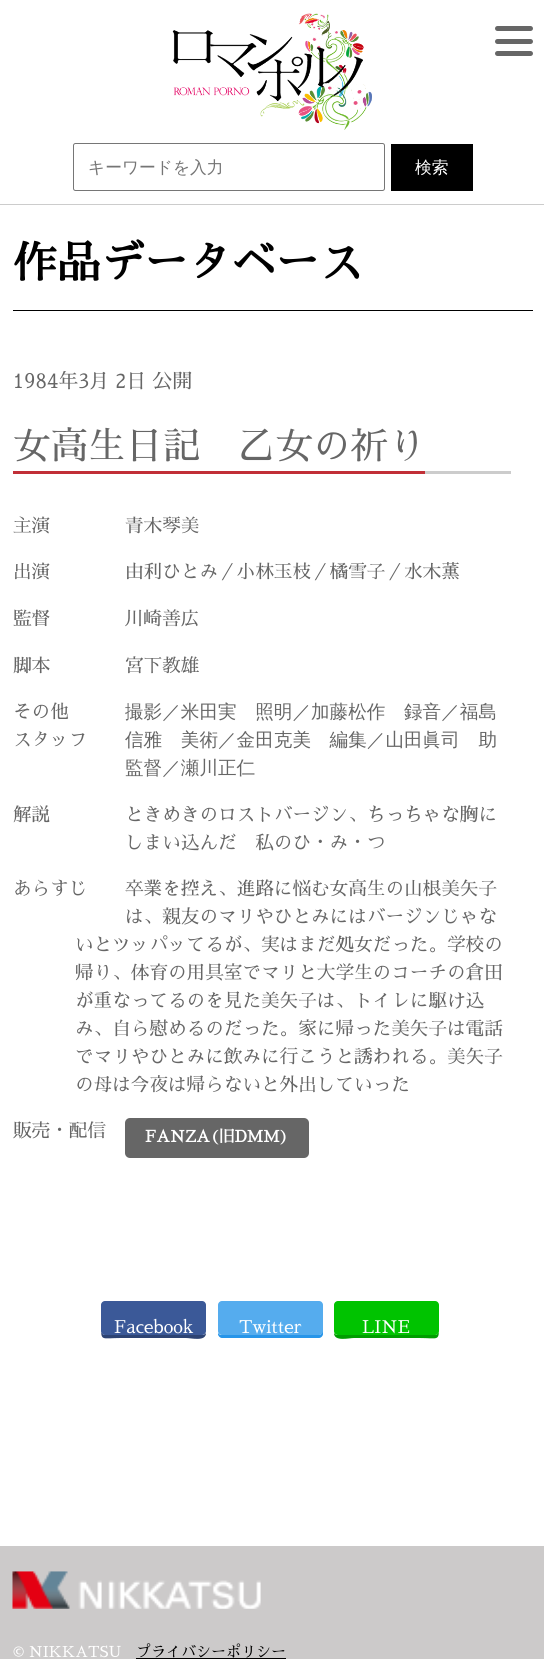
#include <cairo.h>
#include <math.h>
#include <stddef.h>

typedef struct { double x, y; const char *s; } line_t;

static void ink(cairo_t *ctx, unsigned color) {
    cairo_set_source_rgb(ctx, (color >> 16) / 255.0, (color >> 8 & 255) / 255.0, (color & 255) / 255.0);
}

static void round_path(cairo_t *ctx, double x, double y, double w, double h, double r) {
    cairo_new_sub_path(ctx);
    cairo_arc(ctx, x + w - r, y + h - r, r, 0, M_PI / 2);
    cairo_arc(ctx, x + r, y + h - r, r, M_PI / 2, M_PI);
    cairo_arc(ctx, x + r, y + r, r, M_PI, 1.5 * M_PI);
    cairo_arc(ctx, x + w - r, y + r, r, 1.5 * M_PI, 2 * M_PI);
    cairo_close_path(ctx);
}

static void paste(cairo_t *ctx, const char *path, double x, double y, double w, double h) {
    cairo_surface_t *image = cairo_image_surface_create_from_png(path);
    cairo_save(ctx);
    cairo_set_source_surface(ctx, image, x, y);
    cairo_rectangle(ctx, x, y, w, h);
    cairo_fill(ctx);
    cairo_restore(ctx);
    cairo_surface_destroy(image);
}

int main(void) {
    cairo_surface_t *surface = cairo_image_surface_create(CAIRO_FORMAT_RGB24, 544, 1659);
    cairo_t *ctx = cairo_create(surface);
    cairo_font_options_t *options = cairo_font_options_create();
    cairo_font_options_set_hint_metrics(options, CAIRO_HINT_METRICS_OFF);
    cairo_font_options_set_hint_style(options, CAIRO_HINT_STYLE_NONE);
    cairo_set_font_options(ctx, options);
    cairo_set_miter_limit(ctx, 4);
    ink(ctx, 0xFFFFFF);
    cairo_paint(ctx);
    ink(ctx, 0x666666);
    round_path(ctx, 495, 26, 38, 5, 2.5);
    cairo_fill(ctx);
    round_path(ctx, 495, 39, 38, 5, 2.5);
    cairo_fill(ctx);
    round_path(ctx, 495, 51, 38, 5, 2.5);
    cairo_fill(ctx);
    ink(ctx, 0xCCCCCC);
    cairo_rectangle(ctx, 0, 204, 544, 1);
    cairo_fill(ctx);
    paste(ctx, "media/1.png", 172, 13, 200, 117);
    round_path(ctx, 73.5, 143.5, 311, 47, 2);
    ink(ctx, 0x767676);
    cairo_set_line_width(ctx, 1);
    cairo_stroke(ctx);
    cairo_select_font_face(ctx, "WenQuanYi Zen Hei Medium", CAIRO_FONT_SLANT_NORMAL, CAIRO_FONT_WEIGHT_NORMAL);
    cairo_set_font_size(ctx, 16.75);
    ink(ctx, 0x757575);
    cairo_move_to(ctx, 88, 173);
    cairo_show_text(ctx, "キーワードを入力");
    ink(ctx, 0x000000);
    cairo_rectangle(ctx, 391, 144, 82, 47);
    cairo_fill(ctx);
    ink(ctx, 0xFFFFFF);
    cairo_move_to(ctx, 415, 173);
    cairo_show_text(ctx, "検索");
    ink(ctx, 0x000000);
    cairo_rectangle(ctx, 13, 310, 520, 1);
    cairo_fill(ctx);
    cairo_select_font_face(ctx, "Sawarabi Mincho", CAIRO_FONT_SLANT_NORMAL, CAIRO_FONT_WEIGHT_BOLD);
    cairo_set_font_size(ctx, 43.75);
    cairo_move_to(ctx, 13, 278);
    cairo_show_text(ctx, "作品データベース");
    cairo_select_font_face(ctx, "Sawarabi Mincho", CAIRO_FONT_SLANT_NORMAL, CAIRO_FONT_WEIGHT_NORMAL);
    cairo_set_font_size(ctx, 20);
    ink(ctx, 0x666666);
    cairo_move_to(ctx, 13, 388);
    cairo_show_text(ctx, "1984年3月 2日 公開");
    ink(ctx, 0xCCCCCC);
    cairo_rectangle(ctx, 425, 471, 86, 3);
    cairo_fill(ctx);
    ink(ctx, 0xC12F37);
    cairo_rectangle(ctx, 13, 471, 412, 3);
    cairo_fill(ctx);
    cairo_set_font_size(ctx, 37.5);
    ink(ctx, 0x666666);
    cairo_move_to(ctx, 13, 459);
    cairo_show_text(ctx, "女高生日記　乙女の祈り");
    cairo_set_font_size(ctx, 18.6);
    {
        static const line_t items[] = {
            {13, 532, "主演"},
            {125, 532, "青木琴美"},
            {13, 578, "出演"},
            {125, 578, "由利ひとみ／小林玉枝／橘雪子／水木薫"},
            {13, 625, "監督"},
            {125, 625, "川崎善広"},
            {13, 672, "脚本"},
            {125, 672, "宮下教雄"},
            {13, 718, "その他"},
            {13, 746, "スタッフ"},
        };
        for (size_t i = 0; i < sizeof items / sizeof *items; i++) {
            cairo_move_to(ctx, items[i].x, items[i].y);
            cairo_show_text(ctx, items[i].s);
        }
    }
    cairo_select_font_face(ctx, "WenQuanYi Zen Hei Medium", CAIRO_FONT_SLANT_NORMAL, CAIRO_FONT_WEIGHT_NORMAL);
    {
        static const line_t items[] = {
            {125, 718, "撮影／米田実　照明／加藤松作　録音／福島"},
            {125, 746, "信雅　美術／金田克美　編集／山田眞司　助"},
            {125, 774, "監督／瀬川正仁"},
        };
        for (size_t i = 0; i < sizeof items / sizeof *items; i++) {
            cairo_move_to(ctx, items[i].x, items[i].y);
            cairo_show_text(ctx, items[i].s);
        }
    }
    cairo_select_font_face(ctx, "Sawarabi Mincho", CAIRO_FONT_SLANT_NORMAL, CAIRO_FONT_WEIGHT_NORMAL);
    {
        static const line_t items[] = {
            {13, 821, "解説"},
            {125, 821, "ときめきのロストバージン、ちっちゃな胸に"},
            {125, 849, "しまい込んだ　私のひ・み・つ"},
            {13, 895, "あらすじ"},
            {125, 895, "卒業を控え、進路に悩む女高生の山根美矢子"},
            {125, 923, "は、親友のマリやひとみにはバージンじゃな"},
            {75, 951, "いとツッパッてるが、実はまだ処女だった。学校の"},
            {75, 979, "帰り、体育の用具室でマリと大学生のコーチの倉田"},
            {75, 1007, "が重なってるのを見た美矢子は、トイレに駆け込"},
            {75, 1035, "み、自ら慰めるのだった。家に帰った美矢子は電話"},
            {75, 1063, "でマリやひとみに飲みに行こうと誘われる。美矢子"},
            {75, 1091, "の母は今夜は帰らないと外出していった"},
            {13, 1137, "販売・配信"},
        };
        for (size_t i = 0; i < sizeof items / sizeof *items; i++) {
            cairo_move_to(ctx, items[i].x, items[i].y);
            cairo_show_text(ctx, items[i].s);
        }
    }
    round_path(ctx, 125, 1118, 184, 40, 5);
    cairo_fill(ctx);
    cairo_select_font_face(ctx, "Sawarabi Mincho", CAIRO_FONT_SLANT_NORMAL, CAIRO_FONT_WEIGHT_BOLD);
    cairo_set_font_size(ctx, 16);
    ink(ctx, 0xFFFFFF);
    cairo_move_to(ctx, 145, 1142);
    cairo_show_text(ctx, "FANZA(旧DMM)");
    ink(ctx, 0x2D4373);
    cairo_new_path(ctx);
    cairo_move_to(ctx, 101, 1307);
    cairo_line_to(ctx, 101, 1325);
    cairo_curve_to(ctx, 101, 1342, 101, 1338, 121, 1338);
    cairo_line_to(ctx, 186, 1338);
    cairo_curve_to(ctx, 191, 1338, 206, 1342, 206, 1333);
    cairo_curve_to(ctx, 205, 1334, 204, 1335, 202, 1335);
    cairo_line_to(ctx, 105, 1335);
    cairo_curve_to(ctx, 103, 1335, 101, 1333, 101, 1331);
    cairo_close_path(ctx);
    cairo_fill(ctx);
    ink(ctx, 0x3B5998);
    round_path(ctx, 101, 1301, 105, 34, 4);
    cairo_fill(ctx);
    cairo_select_font_face(ctx, "Sawarabi Mincho", CAIRO_FONT_SLANT_NORMAL, CAIRO_FONT_WEIGHT_NORMAL);
    cairo_set_font_size(ctx, 17.5);
    ink(ctx, 0xFFFFFF);
    cairo_move_to(ctx, 114, 1333);
    cairo_show_text(ctx, "Facebook");
    ink(ctx, 0x2795E9);
    cairo_new_path(ctx);
    cairo_move_to(ctx, 218, 1333);
    cairo_line_to(ctx, 218, 1334);
    cairo_curve_to(ctx, 218, 1336, 220, 1338, 222, 1338);
    cairo_line_to(ctx, 319, 1338);
    cairo_curve_to(ctx, 321, 1338, 323, 1336, 323, 1334);
    cairo_line_to(ctx, 323, 1308);
    cairo_line_to(ctx, 322, 1306);
    cairo_line_to(ctx, 322, 1331);
    cairo_curve_to(ctx, 322, 1333, 321, 1335, 319, 1335);
    cairo_line_to(ctx, 221, 1335);
    cairo_curve_to(ctx, 220, 1335, 219, 1334, 218, 1333);
    cairo_close_path(ctx);
    cairo_fill(ctx);
    ink(ctx, 0x55ACEE);
    round_path(ctx, 218, 1301, 105, 34, 4);
    cairo_fill(ctx);
    ink(ctx, 0xFFFFFF);
    cairo_move_to(ctx, 239, 1333);
    cairo_show_text(ctx, "Twitter");
    ink(ctx, 0x009D00);
    cairo_new_path(ctx);
    cairo_move_to(ctx, 334, 1333);
    cairo_curve_to(ctx, 334, 1342, 349, 1338, 354, 1338);
    cairo_line_to(ctx, 419, 1338);
    cairo_curve_to(ctx, 439, 1338, 439, 1342, 439, 1325);
    cairo_line_to(ctx, 439, 1307);
    cairo_line_to(ctx, 439, 1331);
    cairo_curve_to(ctx, 439, 1333, 437, 1335, 435, 1335);
    cairo_line_to(ctx, 338, 1335);
    cairo_curve_to(ctx, 336, 1335, 335, 1334, 334, 1333);
    cairo_close_path(ctx);
    cairo_fill(ctx);
    ink(ctx, 0x00C300);
    round_path(ctx, 334, 1301, 105, 34, 4);
    cairo_fill(ctx);
    ink(ctx, 0xFFFFFF);
    cairo_move_to(ctx, 362, 1333);
    cairo_show_text(ctx, "LINE");
    ink(ctx, 0xCCCACA);
    cairo_rectangle(ctx, 0, 1546, 544, 113);
    cairo_fill(ctx);
    paste(ctx, "media/2.png", 12, 1571, 249, 38);
    cairo_set_font_size(ctx, 15);
    ink(ctx, 0xFFFFFF);
    cairo_move_to(ctx, 13, 1657);
    cairo_show_text(ctx, "© NIKKATSU");
    ink(ctx, 0x000000);
    cairo_move_to(ctx, 136, 1657);
    cairo_show_text(ctx, "プライバシーポリシー");
    cairo_rectangle(ctx, 136, 1658, 150, 1);
    cairo_fill(ctx);
    cairo_surface_write_to_png(surface, "image.png");
    cairo_font_options_destroy(options);
    cairo_destroy(ctx);
    cairo_surface_destroy(surface);
    return 0;
}
